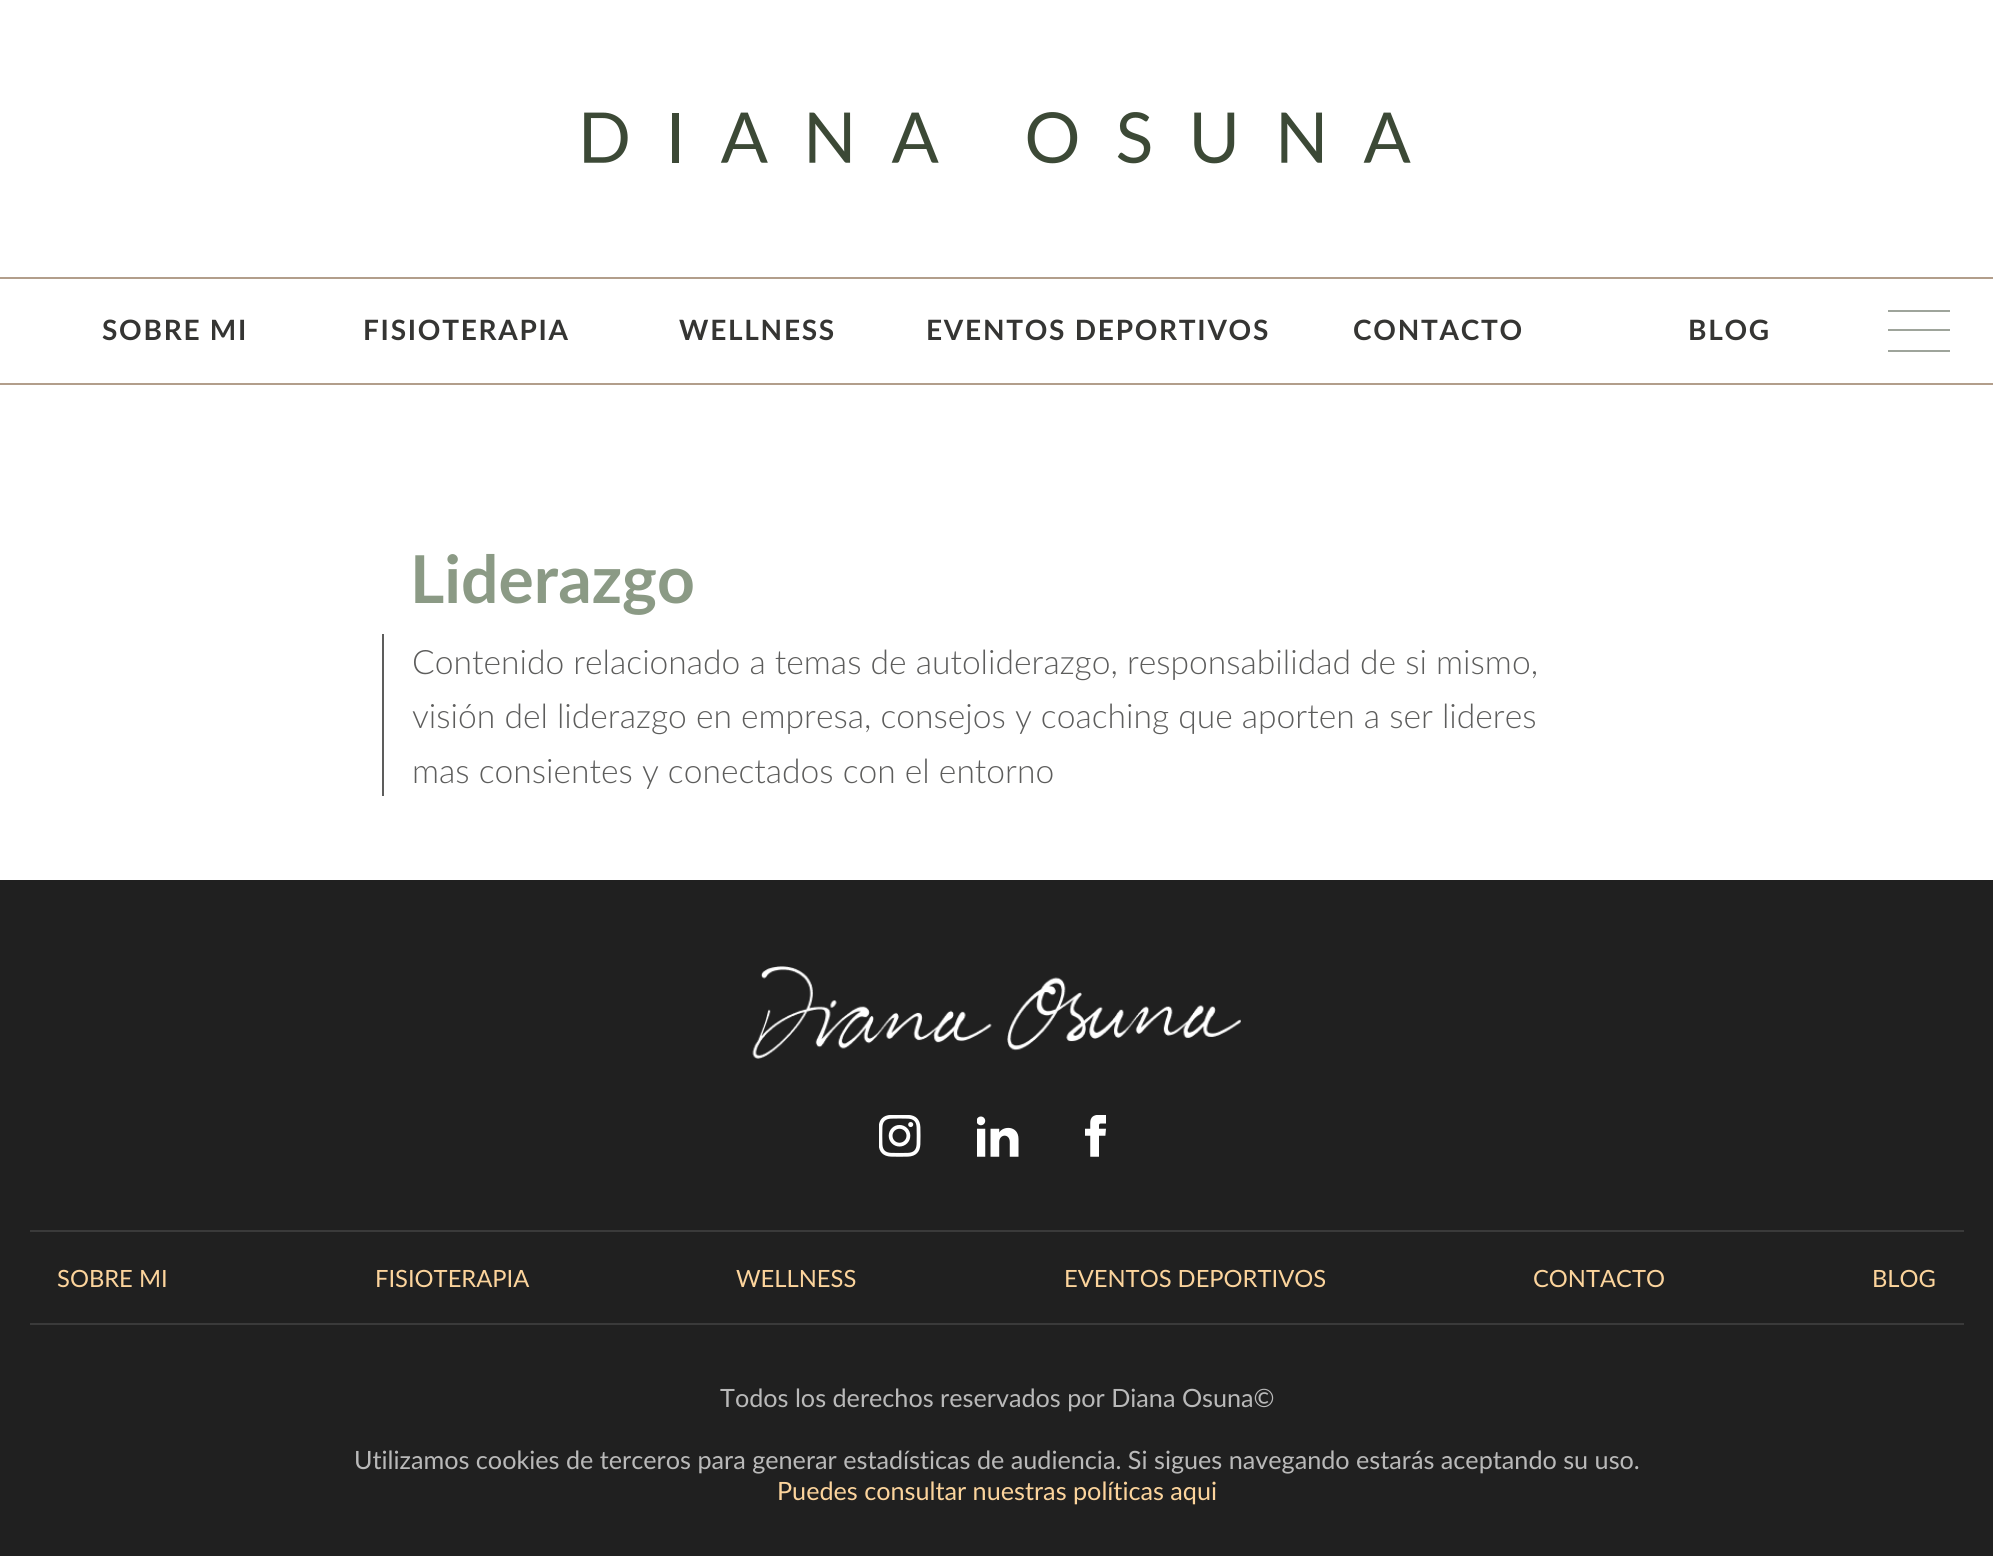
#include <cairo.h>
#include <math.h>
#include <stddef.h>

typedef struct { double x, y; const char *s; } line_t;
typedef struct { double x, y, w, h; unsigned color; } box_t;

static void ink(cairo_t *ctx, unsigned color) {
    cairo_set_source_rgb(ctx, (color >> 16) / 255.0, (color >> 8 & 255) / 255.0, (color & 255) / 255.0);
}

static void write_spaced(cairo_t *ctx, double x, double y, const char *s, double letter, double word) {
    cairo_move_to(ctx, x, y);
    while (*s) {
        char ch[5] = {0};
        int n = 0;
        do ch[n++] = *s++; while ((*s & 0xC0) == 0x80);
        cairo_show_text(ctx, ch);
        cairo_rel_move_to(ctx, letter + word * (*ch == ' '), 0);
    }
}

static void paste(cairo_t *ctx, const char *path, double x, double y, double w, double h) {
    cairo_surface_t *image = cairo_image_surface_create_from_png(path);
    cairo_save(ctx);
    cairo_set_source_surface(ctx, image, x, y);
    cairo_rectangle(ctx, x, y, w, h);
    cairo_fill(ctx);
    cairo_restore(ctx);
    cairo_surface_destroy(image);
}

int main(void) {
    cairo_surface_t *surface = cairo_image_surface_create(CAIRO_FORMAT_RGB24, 1993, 1556);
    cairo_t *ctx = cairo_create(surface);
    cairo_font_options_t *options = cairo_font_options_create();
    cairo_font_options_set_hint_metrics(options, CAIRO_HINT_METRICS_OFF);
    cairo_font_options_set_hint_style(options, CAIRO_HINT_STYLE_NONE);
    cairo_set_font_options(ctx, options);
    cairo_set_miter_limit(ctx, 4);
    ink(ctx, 0xFFFFFF);
    cairo_paint(ctx);
    paste(ctx, "media/1.png", 584, 112, 827, 52);
    ink(ctx, 0xB29E8B);
    cairo_rectangle(ctx, 0, 277, 1993, 2);
    cairo_fill(ctx);
    cairo_rectangle(ctx, 0, 383, 1993, 2);
    cairo_fill(ctx);
    cairo_select_font_face(ctx, "Lato", CAIRO_FONT_SLANT_NORMAL, CAIRO_FONT_WEIGHT_BOLD);
    cairo_set_font_size(ctx, 28);
    ink(ctx, 0x353533);
    {
        static const line_t items[] = {
            {102, 340, "SOBRE MI"},
            {363, 340, "FISIOTERAPIA"},
            {679, 340, "WELLNESS"},
            {926, 340, "EVENTOS DEPORTIVOS"},
            {1353, 340, "CONTACTO"},
            {1688, 340, "BLOG"},
        };
        for (size_t i = 0; i < sizeof items / sizeof *items; i++) {
            write_spaced(ctx, items[i].x, items[i].y, items[i].s, 1.75, 0);
        }
    }
    {
        static const box_t items[] = {
            {1888, 310, 62, 2, 0x9EA49B},
            {1888, 329, 62, 2, 0x9EA49B},
            {1888, 350, 62, 2, 0x9EA49B},
        };
        for (size_t i = 0; i < sizeof items / sizeof *items; i++) {
            ink(ctx, items[i].color);
            cairo_rectangle(ctx, items[i].x, items[i].y, items[i].w, items[i].h);
            cairo_fill(ctx);
        }
    }
    cairo_set_font_size(ctx, 66);
    ink(ctx, 0x8B9A85);
    cairo_move_to(ctx, 410, 603);
    cairo_show_text(ctx, "Liderazgo");
    ink(ctx, 0x5D5D5C);
    cairo_rectangle(ctx, 382, 634, 2, 162);
    cairo_fill(ctx);
    cairo_select_font_face(ctx, "Lato Light", CAIRO_FONT_SLANT_NORMAL, CAIRO_FONT_WEIGHT_NORMAL);
    cairo_set_font_size(ctx, 33.6);
    {
        static const line_t items[] = {
            {412, 674, "Contenido relacionado a temas de autoliderazgo, responsabilidad de si mismo,"},
            {412, 728, "visión del liderazgo en empresa, consejos y coaching que aporten a ser lideres"},
            {412, 783, "mas consientes y conectados con el entorno"},
        };
        for (size_t i = 0; i < sizeof items / sizeof *items; i++) {
            cairo_move_to(ctx, items[i].x, items[i].y);
            cairo_show_text(ctx, items[i].s);
        }
    }
    ink(ctx, 0x202020);
    cairo_rectangle(ctx, 0, 880, 1993, 676);
    cairo_fill(ctx);
    paste(ctx, "media/2.png", 752, 966, 489, 93);
    paste(ctx, "media/3.png", 879, 1115, 42, 42);
    paste(ctx, "media/4.png", 977, 1116, 42, 41);
    paste(ctx, "media/5.png", 1085, 1115, 21, 42);
    ink(ctx, 0x3A3A3A);
    cairo_rectangle(ctx, 30, 1230, 1934, 2);
    cairo_fill(ctx);
    cairo_rectangle(ctx, 30, 1323, 1934, 2);
    cairo_fill(ctx);
    cairo_select_font_face(ctx, "Lato", CAIRO_FONT_SLANT_NORMAL, CAIRO_FONT_WEIGHT_NORMAL);
    cairo_set_font_size(ctx, 23.75);
    ink(ctx, 0xFCD49C);
    {
        static const line_t items[] = {
            {57, 1287, "SOBRE MI"},
            {375, 1287, "FISIOTERAPIA"},
            {736, 1287, "WELLNESS"},
            {1064, 1287, "EVENTOS DEPORTIVOS"},
            {1533, 1287, "CONTACTO"},
            {1872, 1287, "BLOG"},
        };
        for (size_t i = 0; i < sizeof items / sizeof *items; i++) {
            cairo_move_to(ctx, items[i].x, items[i].y);
            cairo_show_text(ctx, items[i].s);
        }
    }
    cairo_set_font_size(ctx, 25.2);
    ink(ctx, 0xB9B9B9);
    cairo_move_to(ctx, 720, 1407);
    cairo_show_text(ctx, "Todos los derechos reservados por Diana Osuna©");
    cairo_move_to(ctx, 354, 1469);
    cairo_show_text(ctx, "Utilizamos cookies de terceros para generar estadísticas de audiencia. Si sigues navegando estarás aceptando su uso.");
    ink(ctx, 0xFCD49C);
    cairo_move_to(ctx, 777, 1500);
    cairo_show_text(ctx, "Puedes consultar nuestras políticas aqui");
    cairo_surface_write_to_png(surface, "image.png");
    cairo_font_options_destroy(options);
    cairo_destroy(ctx);
    cairo_surface_destroy(surface);
    return 0;
}
